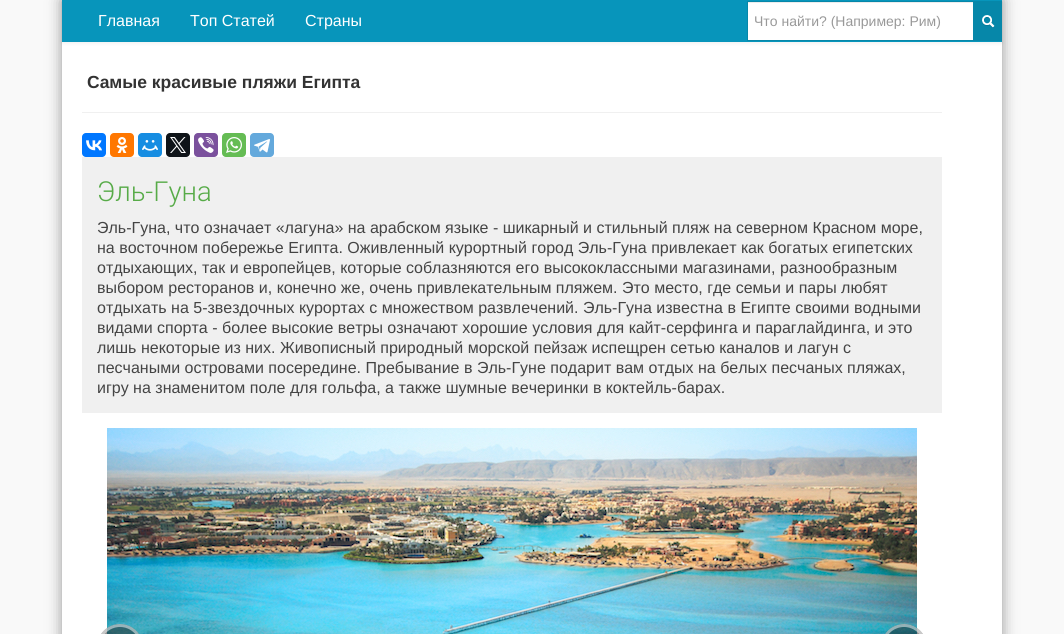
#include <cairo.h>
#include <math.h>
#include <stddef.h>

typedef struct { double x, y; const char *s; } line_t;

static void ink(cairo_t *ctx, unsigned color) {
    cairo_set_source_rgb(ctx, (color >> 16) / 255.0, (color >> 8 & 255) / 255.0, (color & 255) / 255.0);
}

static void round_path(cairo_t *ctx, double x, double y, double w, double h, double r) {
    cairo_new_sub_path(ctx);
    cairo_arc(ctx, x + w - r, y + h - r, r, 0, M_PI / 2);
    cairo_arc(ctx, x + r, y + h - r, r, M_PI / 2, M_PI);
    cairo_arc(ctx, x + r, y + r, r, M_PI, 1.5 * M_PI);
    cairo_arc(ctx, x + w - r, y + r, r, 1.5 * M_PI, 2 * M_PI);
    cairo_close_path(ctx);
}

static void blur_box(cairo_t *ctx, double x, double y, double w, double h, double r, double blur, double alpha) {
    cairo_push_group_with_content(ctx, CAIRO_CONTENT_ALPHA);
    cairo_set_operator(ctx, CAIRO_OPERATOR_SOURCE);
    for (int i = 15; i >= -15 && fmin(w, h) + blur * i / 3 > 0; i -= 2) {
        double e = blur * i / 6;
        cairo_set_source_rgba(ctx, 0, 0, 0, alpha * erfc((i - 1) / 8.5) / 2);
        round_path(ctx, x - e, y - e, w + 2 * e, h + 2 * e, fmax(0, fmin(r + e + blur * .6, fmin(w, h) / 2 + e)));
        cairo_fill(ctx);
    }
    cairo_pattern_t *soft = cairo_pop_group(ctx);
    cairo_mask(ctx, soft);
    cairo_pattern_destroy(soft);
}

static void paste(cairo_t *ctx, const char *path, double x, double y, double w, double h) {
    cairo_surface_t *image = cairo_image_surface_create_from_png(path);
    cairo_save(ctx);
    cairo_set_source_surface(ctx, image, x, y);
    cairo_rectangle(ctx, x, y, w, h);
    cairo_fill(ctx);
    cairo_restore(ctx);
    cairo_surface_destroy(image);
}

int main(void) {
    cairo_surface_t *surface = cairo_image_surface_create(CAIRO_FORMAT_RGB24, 1064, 634);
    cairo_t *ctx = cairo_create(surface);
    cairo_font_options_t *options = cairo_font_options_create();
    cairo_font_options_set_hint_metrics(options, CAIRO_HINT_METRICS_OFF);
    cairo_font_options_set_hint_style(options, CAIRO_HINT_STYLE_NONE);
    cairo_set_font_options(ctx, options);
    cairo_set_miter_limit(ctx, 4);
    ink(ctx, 0xF9F9F9);
    cairo_paint(ctx);
    ink(ctx, 0x323232);
    blur_box(ctx, 62, 0, 940, 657, 0, 7.5, 0.5);
    ink(ctx, 0xFFFFFF);
    cairo_rectangle(ctx, 62, 42, 940, 592);
    cairo_fill(ctx);
    ink(ctx, 0x000000);
    blur_box(ctx, 62, 1, 940, 42, 0, 2, 0.07);
    ink(ctx, 0x0795BB);
    cairo_rectangle(ctx, 62, 0, 940, 42);
    cairo_fill(ctx);
    cairo_select_font_face(ctx, "Liberation Sans", CAIRO_FONT_SLANT_NORMAL, CAIRO_FONT_WEIGHT_NORMAL);
    cairo_set_font_size(ctx, 16);
    ink(ctx, 0xFFFFFF);
    {
        static const line_t items[] = {
            {98, 26, "Главная"},
            {190, 26, "Топ Статей"},
            {305, 26, "Страны"},
        };
        for (size_t i = 0; i < sizeof items / sizeof *items; i++) {
            cairo_move_to(ctx, items[i].x, items[i].y);
            cairo_show_text(ctx, items[i].s);
        }
    }
    cairo_rectangle(ctx, 748, 3, 225, 37);
    cairo_fill(ctx);
    ink(ctx, 0xECECEC);
    cairo_rectangle(ctx, 748, 2, 225, 1);
    cairo_fill(ctx);
    cairo_rectangle(ctx, 747.5, 1.5, 226, 39);
    ink(ctx, 0x0687A9);
    cairo_set_line_width(ctx, 1);
    cairo_stroke(ctx);
    cairo_set_font_size(ctx, 14);
    ink(ctx, 0x999999);
    cairo_move_to(ctx, 754, 26);
    cairo_show_text(ctx, "Что найти? (Например: Рим)");
    ink(ctx, 0x0687A9);
    cairo_rectangle(ctx, 974, 1, 28, 40);
    cairo_fill(ctx);
    paste(ctx, "media/1.png", 982, 15, 13, 13);
    cairo_select_font_face(ctx, "Liberation Sans", CAIRO_FONT_SLANT_NORMAL, CAIRO_FONT_WEIGHT_BOLD);
    cairo_set_font_size(ctx, 17.5);
    ink(ctx, 0x333333);
    cairo_move_to(ctx, 87, 88);
    cairo_show_text(ctx, "Самые красивые пляжи Египта");
    ink(ctx, 0xF0F0F0);
    cairo_rectangle(ctx, 82, 112, 860, 1);
    cairo_fill(ctx);
    ink(ctx, 0x0077FF);
    round_path(ctx, 82, 133, 24, 24, 4);
    cairo_fill(ctx);
    paste(ctx, "media/2.png", 86, 140, 16, 11);
    ink(ctx, 0xFF7700);
    round_path(ctx, 110, 133, 24, 24, 4);
    cairo_fill(ctx);
    paste(ctx, "media/3.png", 116, 137, 12, 16);
    ink(ctx, 0x168DE2);
    round_path(ctx, 138, 133, 24, 24, 4);
    cairo_fill(ctx);
    paste(ctx, "media/4.png", 142, 140, 16, 11);
    ink(ctx, 0x0F1419);
    round_path(ctx, 166, 133, 24, 24, 4);
    cairo_fill(ctx);
    paste(ctx, "media/5.png", 170, 137, 16, 16);
    ink(ctx, 0x7B519D);
    round_path(ctx, 194, 133, 24, 24, 4);
    cairo_fill(ctx);
    paste(ctx, "media/6.png", 198, 137, 16, 16);
    ink(ctx, 0x65BC54);
    round_path(ctx, 222, 133, 24, 24, 4);
    cairo_fill(ctx);
    paste(ctx, "media/7.png", 226, 137, 16, 16);
    ink(ctx, 0x64A9DC);
    round_path(ctx, 250, 133, 24, 24, 4);
    cairo_fill(ctx);
    paste(ctx, "media/8.png", 254, 139, 16, 14);
    ink(ctx, 0xF0F0F0);
    cairo_rectangle(ctx, 82, 157, 860, 256);
    cairo_fill(ctx);
    cairo_select_font_face(ctx, "Roboto Light", CAIRO_FONT_SLANT_NORMAL, CAIRO_FONT_WEIGHT_NORMAL);
    cairo_set_font_size(ctx, 27.5);
    ink(ctx, 0x57AB48);
    cairo_move_to(ctx, 97, 201);
    cairo_show_text(ctx, "Эль-Гуна");
    cairo_select_font_face(ctx, "Liberation Sans", CAIRO_FONT_SLANT_NORMAL, CAIRO_FONT_WEIGHT_NORMAL);
    cairo_set_font_size(ctx, 16);
    ink(ctx, 0x444444);
    {
        static const line_t items[] = {
            {97, 233, "Эль-Гуна, что означает «лагуна» на арабском языке - шикарный и стильный пляж на северном Красном море,"},
            {97, 253, "на восточном побережье Египта. Оживленный курортный город Эль-Гуна привлекает как богатых египетских"},
            {97, 273, "отдыхающих, так и европейцев, которые соблазняются его высококлассными магазинами, разнообразным"},
            {97, 293, "выбором ресторанов и, конечно же, очень привлекательным пляжем. Это место, где семьи и пары любят"},
            {97, 313, "отдыхать на 5-звездочных курортах с множеством развлечений. Эль-Гуна известна в Египте своими водными"},
            {97, 333, "видами спорта - более высокие ветры означают хорошие условия для кайт-серфинга и параглайдинга, и это"},
            {97, 353, "лишь некоторые из них. Живописный природный морской пейзаж испещрен сетью каналов и лагун с"},
            {97, 373, "песчаными островами посередине. Пребывание в Эль-Гуне подарит вам отдых на белых песчаных пляжах,"},
            {97, 393, "игру на знаменитом поле для гольфа, а также шумные вечеринки в коктейль-барах."},
        };
        for (size_t i = 0; i < sizeof items / sizeof *items; i++) {
            cairo_move_to(ctx, items[i].x, items[i].y);
            cairo_show_text(ctx, items[i].s);
        }
    }
    paste(ctx, "media/9.png", 107, 428, 810, 206);
    cairo_set_source_rgba(ctx, 0.133, 0.133, 0.133, 0.5);
    round_path(ctx, 97, 624, 46, 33, 23);
    cairo_fill(ctx);
    round_path(ctx, 98.5, 625.5, 43, 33, 21.5);
    cairo_set_source_rgba(ctx, 1, 1, 1, 0.5);
    cairo_set_line_width(ctx, 3);
    cairo_stroke(ctx);
    cairo_set_source_rgba(ctx, 0.133, 0.133, 0.133, 0.5);
    round_path(ctx, 881, 624, 46, 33, 23);
    cairo_fill(ctx);
    round_path(ctx, 882.5, 625.5, 43, 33, 21.5);
    cairo_set_source_rgba(ctx, 1, 1, 1, 0.5);
    cairo_stroke(ctx);
    cairo_surface_write_to_png(surface, "image.png");
    cairo_font_options_destroy(options);
    cairo_destroy(ctx);
    cairo_surface_destroy(surface);
    return 0;
}
